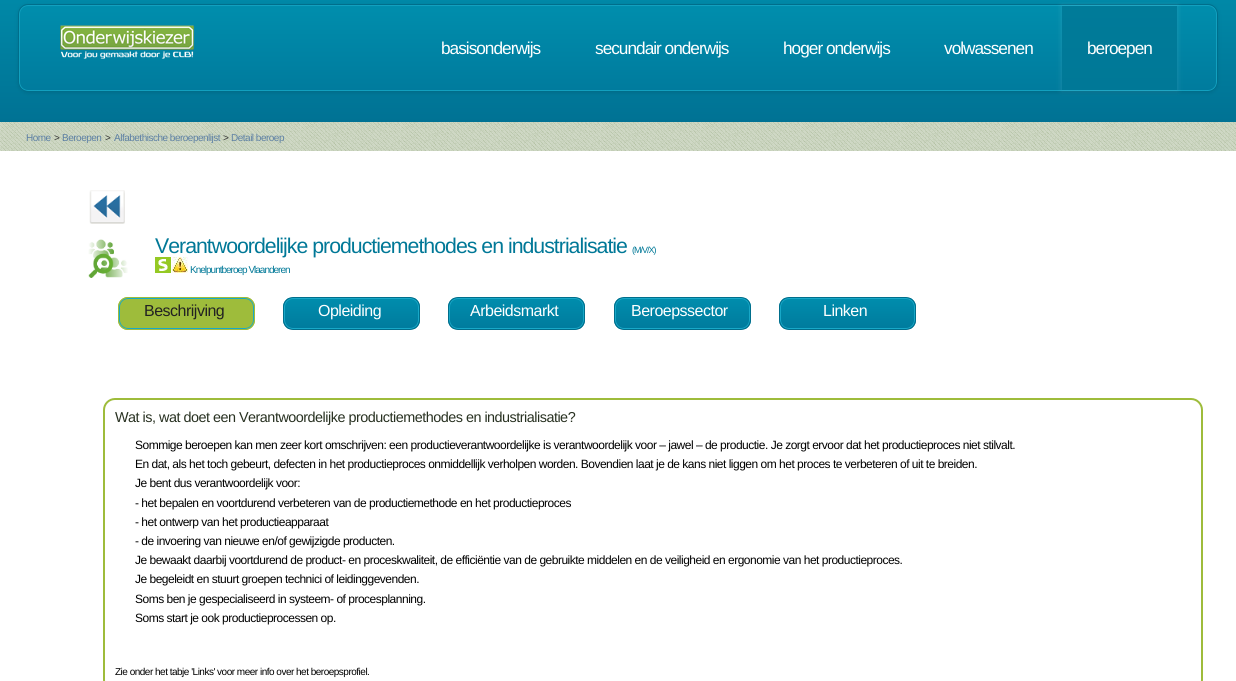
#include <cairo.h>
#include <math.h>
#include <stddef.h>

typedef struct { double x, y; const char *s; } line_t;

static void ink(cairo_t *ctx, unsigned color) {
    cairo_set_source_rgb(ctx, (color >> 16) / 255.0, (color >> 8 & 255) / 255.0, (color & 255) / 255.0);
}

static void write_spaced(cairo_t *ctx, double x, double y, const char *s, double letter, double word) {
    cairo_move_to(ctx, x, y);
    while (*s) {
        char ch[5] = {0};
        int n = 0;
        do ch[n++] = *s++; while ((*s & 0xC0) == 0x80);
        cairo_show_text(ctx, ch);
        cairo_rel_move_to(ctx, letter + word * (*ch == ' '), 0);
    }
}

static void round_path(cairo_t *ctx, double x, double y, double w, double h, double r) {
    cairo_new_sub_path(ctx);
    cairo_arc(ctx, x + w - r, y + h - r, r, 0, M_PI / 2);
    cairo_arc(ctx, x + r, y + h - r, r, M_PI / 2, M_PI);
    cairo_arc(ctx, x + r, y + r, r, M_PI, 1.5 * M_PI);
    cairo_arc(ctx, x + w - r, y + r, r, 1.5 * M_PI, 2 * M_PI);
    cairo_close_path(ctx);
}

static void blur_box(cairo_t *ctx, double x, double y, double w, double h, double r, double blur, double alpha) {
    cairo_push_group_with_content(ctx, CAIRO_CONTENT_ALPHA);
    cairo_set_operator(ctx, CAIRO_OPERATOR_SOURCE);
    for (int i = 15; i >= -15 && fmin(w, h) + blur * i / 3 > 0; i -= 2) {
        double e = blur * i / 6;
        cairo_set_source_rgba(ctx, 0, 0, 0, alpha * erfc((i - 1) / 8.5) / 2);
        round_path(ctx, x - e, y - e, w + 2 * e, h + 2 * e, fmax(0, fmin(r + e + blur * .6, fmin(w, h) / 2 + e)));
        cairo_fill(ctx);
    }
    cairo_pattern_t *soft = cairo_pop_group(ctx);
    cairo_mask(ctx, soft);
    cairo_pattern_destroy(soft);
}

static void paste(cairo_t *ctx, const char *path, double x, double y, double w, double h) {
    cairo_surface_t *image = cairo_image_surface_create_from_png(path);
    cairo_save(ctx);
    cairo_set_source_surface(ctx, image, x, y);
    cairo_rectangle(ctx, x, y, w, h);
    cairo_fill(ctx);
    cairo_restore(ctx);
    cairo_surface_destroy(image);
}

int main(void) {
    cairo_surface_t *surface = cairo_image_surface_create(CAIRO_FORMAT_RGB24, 1236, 681);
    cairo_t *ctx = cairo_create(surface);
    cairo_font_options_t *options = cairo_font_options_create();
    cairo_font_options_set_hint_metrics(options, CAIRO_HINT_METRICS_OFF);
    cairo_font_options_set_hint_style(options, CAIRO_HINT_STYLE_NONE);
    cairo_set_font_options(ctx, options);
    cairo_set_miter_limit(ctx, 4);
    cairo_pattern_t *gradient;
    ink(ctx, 0xFFFFFF);
    cairo_paint(ctx);
    gradient = cairo_pattern_create_linear(0, -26, 0, 122);
    cairo_pattern_add_color_stop_rgba(gradient, 0, 0, 0.553, 0.671, 1);
    cairo_pattern_add_color_stop_rgba(gradient, 1, 0, 0.447, 0.58, 1);
    cairo_set_source(ctx, gradient);
    cairo_pattern_destroy(gradient);
    cairo_rectangle(ctx, 0, 0, 1236, 122);
    cairo_fill(ctx);
    ink(ctx, 0x000000);
    blur_box(ctx, 18, 5, 1200, 88, 10, 2, 0.1);
    cairo_save(ctx);
    round_path(ctx, 18, 4, 1200, 88, 10);
    cairo_clip(ctx);
    gradient = cairo_pattern_create_linear(19, 5, 19, 91);
    cairo_pattern_add_color_stop_rgba(gradient, 0, 0, 0.557, 0.678, 1);
    cairo_pattern_add_color_stop_rgba(gradient, 1, 0, 0.482, 0.616, 1);
    cairo_set_source(ctx, gradient);
    cairo_pattern_destroy(gradient);
    cairo_rectangle(ctx, 18, 5, 1200, 86);
    cairo_fill(ctx);
    cairo_restore(ctx);
    round_path(ctx, 19.5, 5.5, 1197, 85, 8.5);
    ink(ctx, 0x12A0BF);
    cairo_set_line_width(ctx, 1);
    cairo_stroke(ctx);
    round_path(ctx, 18.5, 4.5, 1199, 87, 9.5);
    ink(ctx, 0x006E8B);
    cairo_stroke(ctx);
    paste(ctx, "media/1.png", 60, 25, 135, 34);
    cairo_select_font_face(ctx, "Liberation Sans", CAIRO_FONT_SLANT_NORMAL, CAIRO_FONT_WEIGHT_NORMAL);
    cairo_set_font_size(ctx, 17.25);
    ink(ctx, 0xFFFFFF);
    {
        static const line_t items[] = {
            {441, 54, "basisonderwijs"},
            {595, 54, "secundair onderwijs"},
            {783, 54, "hoger onderwijs"},
            {944, 54, "volwassenen"},
        };
        for (size_t i = 0; i < sizeof items / sizeof *items; i++) {
            write_spaced(ctx, items[i].x, items[i].y, items[i].s, -1, 0);
        }
    }
    ink(ctx, 0xFFFFFF);
    blur_box(ctx, 1061, 5, 117, 86, 0, 2.5, 0.1);
    gradient = cairo_pattern_create_linear(1062, 6, 1062, 90);
    cairo_pattern_add_color_stop_rgba(gradient, 0, 0, 0.482, 0.6, 1);
    cairo_pattern_add_color_stop_rgba(gradient, 1, 0, 0.471, 0.592, 1);
    cairo_set_source(ctx, gradient);
    cairo_pattern_destroy(gradient);
    cairo_rectangle(ctx, 1062, 6, 115, 84);
    cairo_fill(ctx);
    ink(ctx, 0xFFFFFF);
    write_spaced(ctx, 1087, 54, "beroepen", -1, 0);
    paste(ctx, "media/2.png", 0, 122, 1236, 29);
    cairo_set_font_size(ctx, 10);
    ink(ctx, 0x5D80A4);
    write_spaced(ctx, 26, 141, "Home", -0.5, 0);
    ink(ctx, 0x333333);
    write_spaced(ctx, 54, 141, ">", -0.5, 0);
    ink(ctx, 0x5D80A4);
    write_spaced(ctx, 62, 141, "Beroepen", -0.5, 0);
    ink(ctx, 0x333333);
    write_spaced(ctx, 105, 141, ">", -0.5, 0);
    ink(ctx, 0x5D80A4);
    write_spaced(ctx, 114, 141, "Alfabethische beroepenlijst", -0.5, 0);
    ink(ctx, 0x333333);
    write_spaced(ctx, 223, 141, ">", -0.5, 0);
    ink(ctx, 0x5D80A4);
    write_spaced(ctx, 231, 141, "Detail beroep", -0.5, 0);
    paste(ctx, "media/3.png", 89, 190, 36, 34);
    paste(ctx, "media/4.png", 88, 239, 40, 39);
    cairo_set_font_size(ctx, 21.3);
    ink(ctx, 0x007897);
    write_spaced(ctx, 155, 253, "Verantwoordelijke productiemethodes en industrialisatie", -1, 0);
    cairo_set_font_size(ctx, 9);
    write_spaced(ctx, 632, 253, "(M/V/X)", -1, 0);
    paste(ctx, "media/5.png", 155, 257, 16, 16);
    paste(ctx, "media/6.png", 172, 257, 16, 16);
    cairo_set_font_size(ctx, 10);
    write_spaced(ctx, 190, 273, "Knelpuntberoep Vlaanderen", -1, 0);
    ink(ctx, 0x9EBC3B);
    round_path(ctx, 118, 297, 137, 33, 10);
    cairo_fill(ctx);
    round_path(ctx, 119.5, 298.5, 134, 30, 8.5);
    ink(ctx, 0x18A8C8);
    cairo_stroke(ctx);
    round_path(ctx, 118.5, 297.5, 136, 32, 9.5);
    ink(ctx, 0x9EBC3B);
    cairo_stroke(ctx);
    cairo_set_font_size(ctx, 16);
    ink(ctx, 0x222222);
    write_spaced(ctx, 144, 316, "Beschrijving", -0.5, 0);
    cairo_save(ctx);
    round_path(ctx, 283, 297, 137, 33, 10);
    cairo_clip(ctx);
    gradient = cairo_pattern_create_linear(284, 298, 284, 329);
    cairo_pattern_add_color_stop_rgba(gradient, 0, 0, 0.553, 0.678, 1);
    cairo_pattern_add_color_stop_rgba(gradient, 1, 0, 0.482, 0.616, 1);
    cairo_set_source(ctx, gradient);
    cairo_pattern_destroy(gradient);
    cairo_rectangle(ctx, 283, 298, 137, 31);
    cairo_fill(ctx);
    cairo_restore(ctx);
    round_path(ctx, 284.5, 298.5, 134, 30, 8.5);
    ink(ctx, 0x18A8C8);
    cairo_stroke(ctx);
    round_path(ctx, 283.5, 297.5, 136, 32, 9.5);
    ink(ctx, 0x006E8B);
    cairo_stroke(ctx);
    ink(ctx, 0xFFFFFF);
    write_spaced(ctx, 318, 316, "Opleiding", -0.5, 0);
    cairo_save(ctx);
    round_path(ctx, 448, 297, 137, 33, 10);
    cairo_clip(ctx);
    gradient = cairo_pattern_create_linear(449, 298, 449, 329);
    cairo_pattern_add_color_stop_rgba(gradient, 0, 0, 0.553, 0.678, 1);
    cairo_pattern_add_color_stop_rgba(gradient, 1, 0, 0.482, 0.616, 1);
    cairo_set_source(ctx, gradient);
    cairo_pattern_destroy(gradient);
    cairo_rectangle(ctx, 448, 298, 137, 31);
    cairo_fill(ctx);
    cairo_restore(ctx);
    round_path(ctx, 449.5, 298.5, 134, 30, 8.5);
    ink(ctx, 0x18A8C8);
    cairo_stroke(ctx);
    round_path(ctx, 448.5, 297.5, 136, 32, 9.5);
    ink(ctx, 0x006E8B);
    cairo_stroke(ctx);
    ink(ctx, 0xFFFFFF);
    write_spaced(ctx, 470, 316, "Arbeidsmarkt", -0.5, 0);
    cairo_save(ctx);
    round_path(ctx, 614, 297, 137, 33, 10);
    cairo_clip(ctx);
    gradient = cairo_pattern_create_linear(615, 298, 615, 329);
    cairo_pattern_add_color_stop_rgba(gradient, 0, 0, 0.553, 0.678, 1);
    cairo_pattern_add_color_stop_rgba(gradient, 1, 0, 0.482, 0.616, 1);
    cairo_set_source(ctx, gradient);
    cairo_pattern_destroy(gradient);
    cairo_rectangle(ctx, 614, 298, 137, 31);
    cairo_fill(ctx);
    cairo_restore(ctx);
    round_path(ctx, 615.5, 298.5, 134, 30, 8.5);
    ink(ctx, 0x18A8C8);
    cairo_stroke(ctx);
    round_path(ctx, 614.5, 297.5, 136, 32, 9.5);
    ink(ctx, 0x006E8B);
    cairo_stroke(ctx);
    ink(ctx, 0xFFFFFF);
    write_spaced(ctx, 631, 316, "Beroepssector", -0.5, 0);
    cairo_save(ctx);
    round_path(ctx, 779, 297, 137, 33, 10);
    cairo_clip(ctx);
    gradient = cairo_pattern_create_linear(780, 298, 780, 329);
    cairo_pattern_add_color_stop_rgba(gradient, 0, 0, 0.553, 0.678, 1);
    cairo_pattern_add_color_stop_rgba(gradient, 1, 0, 0.482, 0.616, 1);
    cairo_set_source(ctx, gradient);
    cairo_pattern_destroy(gradient);
    cairo_rectangle(ctx, 779, 298, 137, 31);
    cairo_fill(ctx);
    cairo_restore(ctx);
    round_path(ctx, 780.5, 298.5, 134, 30, 8.5);
    ink(ctx, 0x18A8C8);
    cairo_stroke(ctx);
    round_path(ctx, 779.5, 297.5, 136, 32, 9.5);
    ink(ctx, 0x006E8B);
    cairo_stroke(ctx);
    ink(ctx, 0xFFFFFF);
    write_spaced(ctx, 823, 316, "Linken", -0.5, 0);
    round_path(ctx, 104, 399, 1098, 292, 11);
    ink(ctx, 0x9EBC3B);
    cairo_set_line_width(ctx, 2);
    cairo_stroke(ctx);
    cairo_set_font_size(ctx, 14.4);
    ink(ctx, 0x283121);
    write_spaced(ctx, 115, 422, "Wat is, wat doet een Verantwoordelijke productiemethodes en industrialisatie?", -0.5, 0);
    cairo_set_font_size(ctx, 12);
    ink(ctx, 0x000000);
    {
        static const line_t items[] = {
            {135, 449, "Sommige beroepen kan men zeer kort omschrijven: een productieverantwoordelijke is verantwoordelijk voor – jawel – de productie. Je zorgt ervoor dat het productieproces niet stilvalt."},
            {135, 468, "En dat, als het toch gebeurt, defecten in het productieproces onmiddellijk verholpen worden. Bovendien laat je de kans niet liggen om het proces te verbeteren of uit te breiden."},
            {135, 487, "Je bent dus verantwoordelijk voor:"},
            {135, 507, "- het bepalen en voortdurend verbeteren van de productiemethode en het productieproces"},
            {135, 526, "- het ontwerp van het productieapparaat"},
            {135, 545, "- de invoering van nieuwe en/of gewijzigde producten."},
            {135, 564, "Je bewaakt daarbij voortdurend de product- en proceskwaliteit, de efficiëntie van de gebruikte middelen en de veiligheid en ergonomie van het productieproces."},
            {135, 583, "Je begeleidt en stuurt groepen technici of leidinggevenden."},
            {135, 603, "Soms ben je gespecialiseerd in systeem- of procesplanning."},
            {135, 622, "Soms start je ook productieprocessen op."},
        };
        for (size_t i = 0; i < sizeof items / sizeof *items; i++) {
            write_spaced(ctx, items[i].x, items[i].y, items[i].s, -0.5, 0);
        }
    }
    cairo_set_font_size(ctx, 10);
    write_spaced(ctx, 115, 675, "Zie onder het tabje 'Links' voor meer info over het beroepsprofiel.", -0.5, 0);
    cairo_surface_write_to_png(surface, "image.png");
    cairo_font_options_destroy(options);
    cairo_destroy(ctx);
    cairo_surface_destroy(surface);
    return 0;
}
